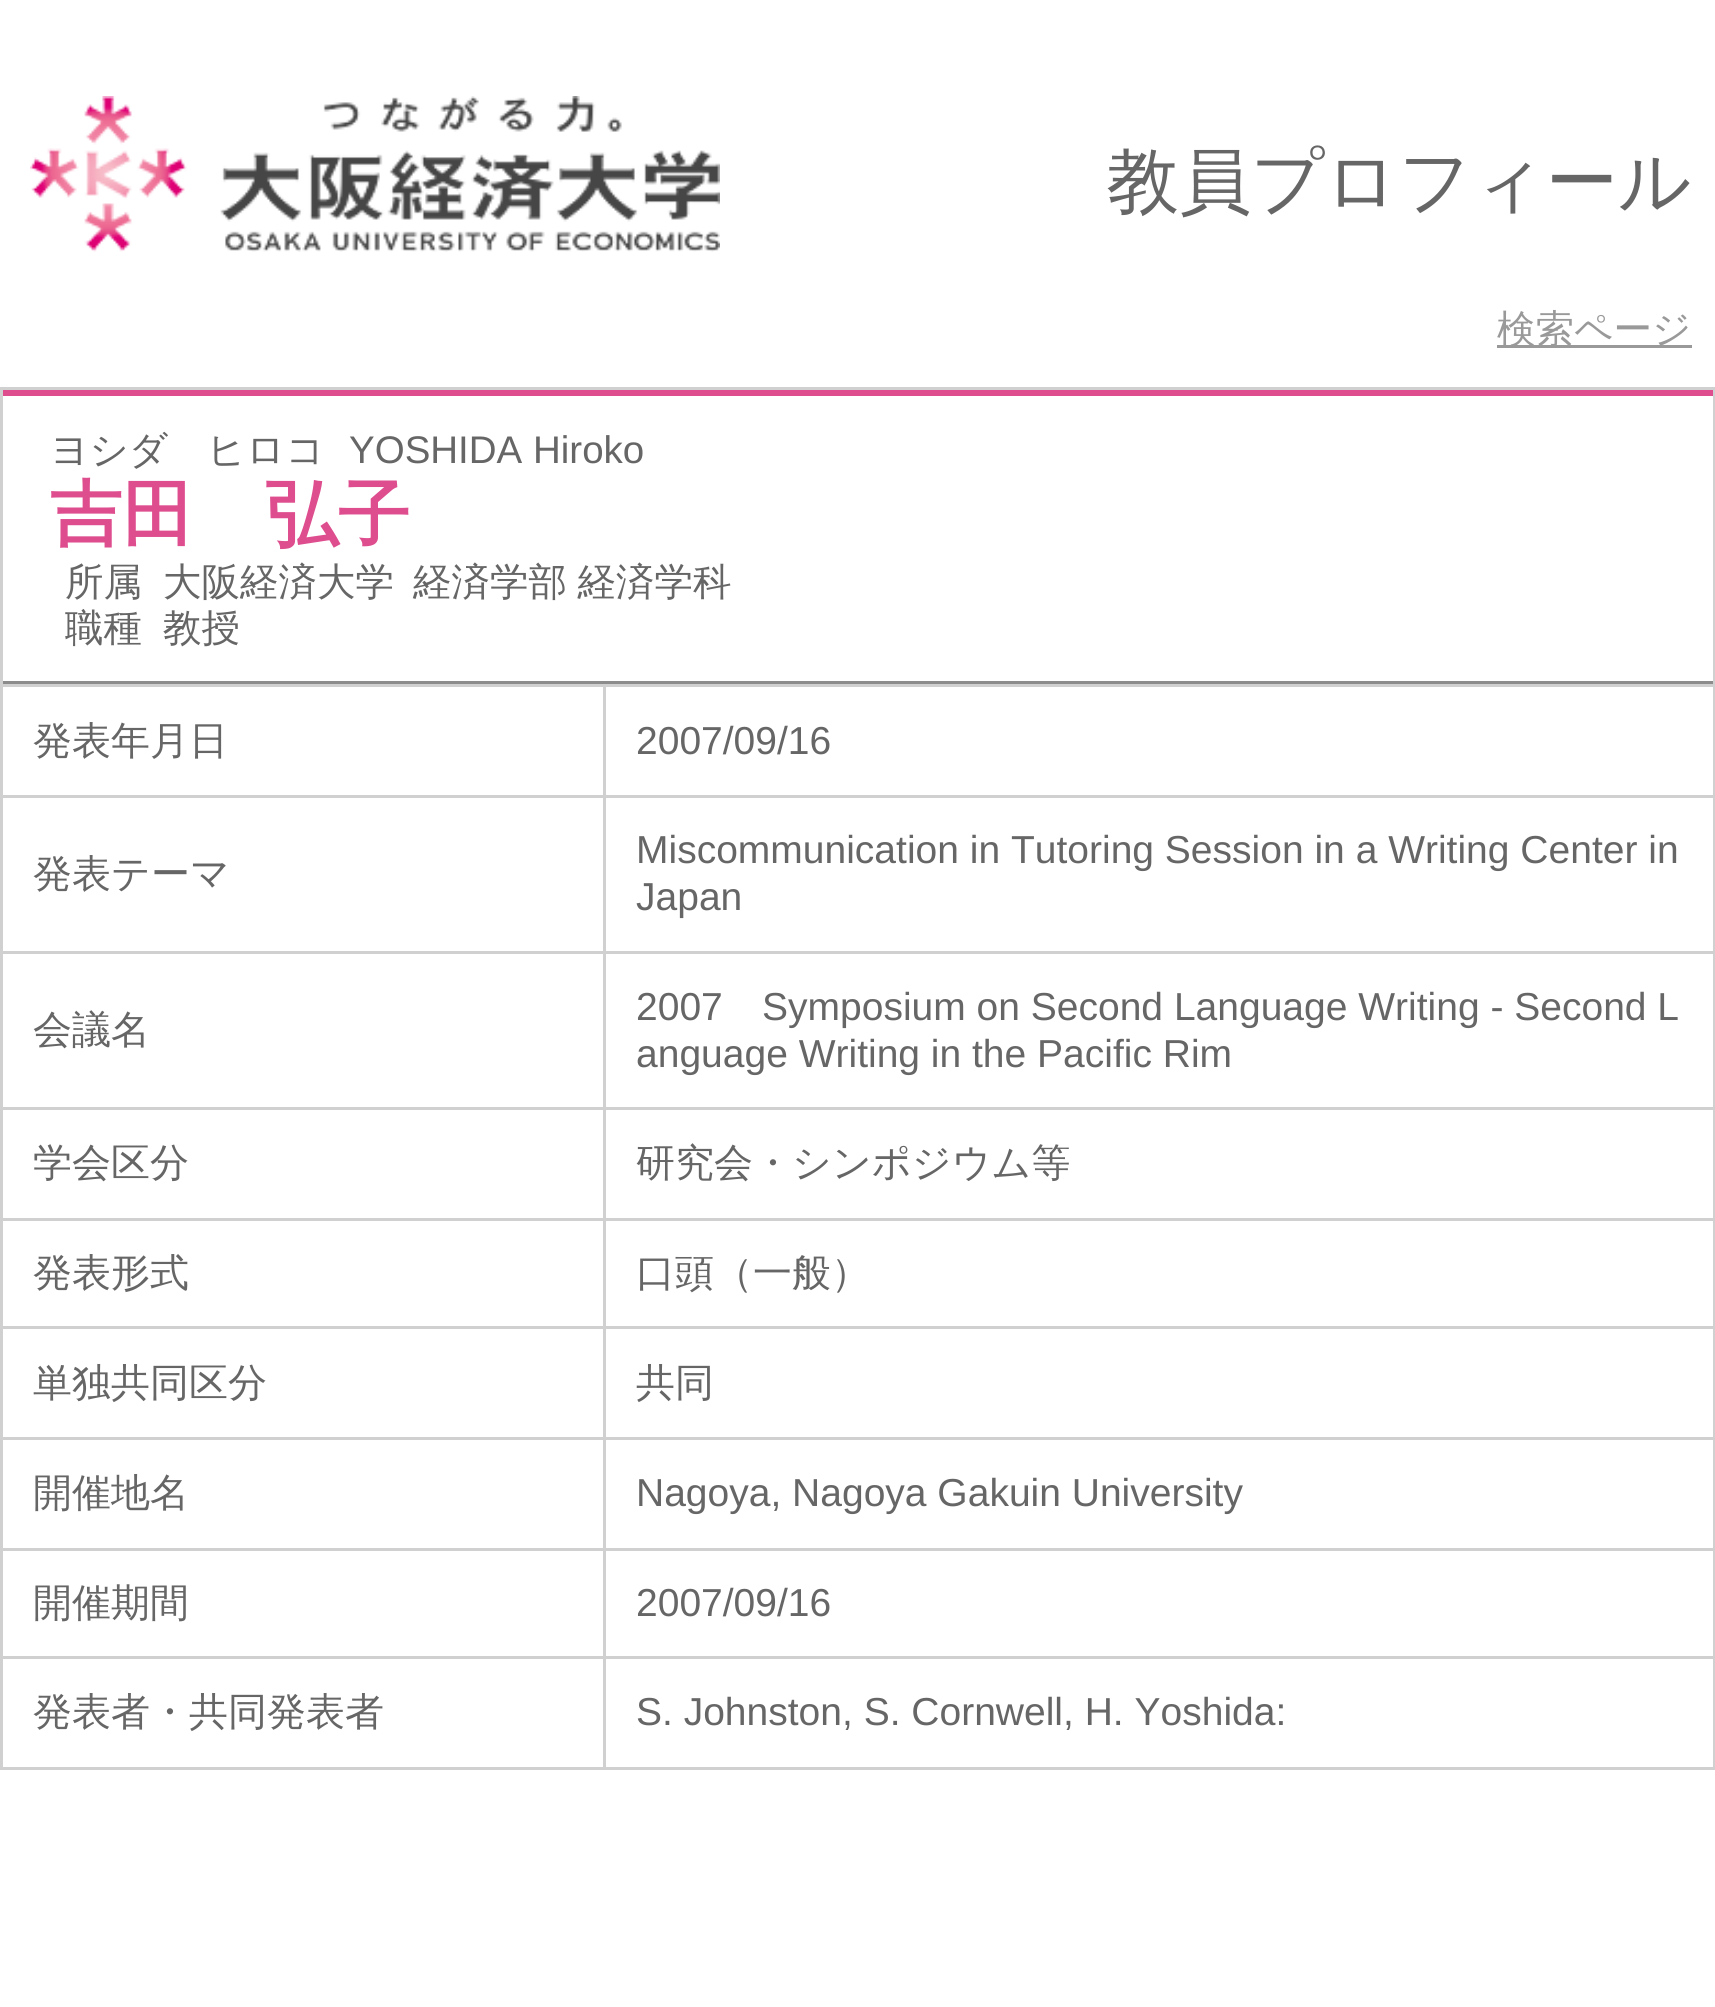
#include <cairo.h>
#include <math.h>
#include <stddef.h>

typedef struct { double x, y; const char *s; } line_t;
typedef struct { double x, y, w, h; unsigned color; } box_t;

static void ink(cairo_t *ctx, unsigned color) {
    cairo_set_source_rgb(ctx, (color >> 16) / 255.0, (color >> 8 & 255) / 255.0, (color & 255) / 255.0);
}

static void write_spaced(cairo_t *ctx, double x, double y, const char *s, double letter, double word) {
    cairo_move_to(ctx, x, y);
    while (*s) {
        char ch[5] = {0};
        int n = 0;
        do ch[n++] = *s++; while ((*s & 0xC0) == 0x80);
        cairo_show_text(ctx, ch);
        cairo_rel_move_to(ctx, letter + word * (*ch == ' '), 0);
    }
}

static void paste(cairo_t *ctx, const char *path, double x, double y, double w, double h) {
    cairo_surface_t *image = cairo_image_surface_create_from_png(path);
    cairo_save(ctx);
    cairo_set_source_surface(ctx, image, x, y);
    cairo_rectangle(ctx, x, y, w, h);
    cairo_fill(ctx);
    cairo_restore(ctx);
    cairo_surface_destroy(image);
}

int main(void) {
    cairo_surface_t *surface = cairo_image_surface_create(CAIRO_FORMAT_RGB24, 1715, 2007);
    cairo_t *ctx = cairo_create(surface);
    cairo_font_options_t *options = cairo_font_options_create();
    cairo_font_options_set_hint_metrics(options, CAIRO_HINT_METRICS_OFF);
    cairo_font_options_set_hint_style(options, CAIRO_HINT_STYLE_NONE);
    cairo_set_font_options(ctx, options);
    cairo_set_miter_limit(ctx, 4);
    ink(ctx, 0xFFFFFF);
    cairo_paint(ctx);
    paste(ctx, "media/1.png", 30, 96, 690, 156);
    cairo_select_font_face(ctx, "WenQuanYi Zen Hei Medium", CAIRO_FONT_SLANT_NORMAL, CAIRO_FONT_WEIGHT_NORMAL);
    cairo_set_font_size(ctx, 72);
    ink(ctx, 0x666666);
    cairo_move_to(ctx, 1107, 206);
    cairo_show_text(ctx, "教員プロフィール");
    ink(ctx, 0x999999);
    cairo_rectangle(ctx, 1497, 345, 195, 3);
    cairo_fill(ctx);
    cairo_set_font_size(ctx, 38.5);
    cairo_move_to(ctx, 1497, 342);
    cairo_show_text(ctx, "検索ページ");
    {
        static const box_t items[] = {
            {0, 387, 1715, 1383, 0xD0D0D0},
            {3, 396, 1710, 285, 0xFFFFFF},
            {3, 390, 1710, 6, 0xDE4D8E},
            {3, 681, 1710, 3, 0x8C8C8C},
        };
        for (size_t i = 0; i < sizeof items / sizeof *items; i++) {
            ink(ctx, items[i].color);
            cairo_rectangle(ctx, items[i].x, items[i].y, items[i].w, items[i].h);
            cairo_fill(ctx);
        }
    }
    ink(ctx, 0x666666);
    cairo_move_to(ctx, 50, 463);
    cairo_show_text(ctx, "ヨシダ　ヒロコ");
    cairo_select_font_face(ctx, "Liberation Sans", CAIRO_FONT_SLANT_NORMAL, CAIRO_FONT_WEIGHT_NORMAL);
    cairo_move_to(ctx, 349, 463);
    cairo_show_text(ctx, "YOSHIDA Hiroko");
    cairo_select_font_face(ctx, "WenQuanYi Zen Hei", CAIRO_FONT_SLANT_NORMAL, CAIRO_FONT_WEIGHT_BOLD);
    cairo_set_font_size(ctx, 72);
    ink(ctx, 0xDE4D8E);
    cairo_move_to(ctx, 50, 539);
    cairo_show_text(ctx, "吉田　弘子");
    cairo_select_font_face(ctx, "WenQuanYi Zen Hei Medium", CAIRO_FONT_SLANT_NORMAL, CAIRO_FONT_WEIGHT_NORMAL);
    cairo_set_font_size(ctx, 38.5);
    ink(ctx, 0x666666);
    cairo_move_to(ctx, 65, 595);
    cairo_show_text(ctx, "所属");
    cairo_move_to(ctx, 163, 595);
    cairo_show_text(ctx, "大阪経済大学");
    write_spaced(ctx, 413, 595, "経済学部 経済学科", 0, -1);
    cairo_move_to(ctx, 65, 641);
    cairo_show_text(ctx, "職種");
    cairo_move_to(ctx, 163, 641);
    cairo_show_text(ctx, "教授");
    ink(ctx, 0xFFFFFF);
    cairo_rectangle(ctx, 3, 687, 600, 108);
    cairo_fill(ctx);
    cairo_set_font_size(ctx, 39);
    ink(ctx, 0x666666);
    cairo_move_to(ctx, 33, 754);
    cairo_show_text(ctx, "発表年月日");
    ink(ctx, 0xFFFFFF);
    cairo_rectangle(ctx, 606, 687, 1107, 108);
    cairo_fill(ctx);
    cairo_select_font_face(ctx, "Liberation Sans", CAIRO_FONT_SLANT_NORMAL, CAIRO_FONT_WEIGHT_NORMAL);
    ink(ctx, 0x666666);
    cairo_move_to(ctx, 636, 754);
    cairo_show_text(ctx, "2007/09/16");
    ink(ctx, 0xFFFFFF);
    cairo_rectangle(ctx, 3, 798, 600, 153);
    cairo_fill(ctx);
    cairo_select_font_face(ctx, "WenQuanYi Zen Hei Medium", CAIRO_FONT_SLANT_NORMAL, CAIRO_FONT_WEIGHT_NORMAL);
    ink(ctx, 0x666666);
    cairo_move_to(ctx, 33, 887);
    cairo_show_text(ctx, "発表テーマ");
    ink(ctx, 0xFFFFFF);
    cairo_rectangle(ctx, 606, 798, 1107, 153);
    cairo_fill(ctx);
    cairo_select_font_face(ctx, "Liberation Sans", CAIRO_FONT_SLANT_NORMAL, CAIRO_FONT_WEIGHT_NORMAL);
    ink(ctx, 0x666666);
    cairo_move_to(ctx, 636, 863);
    cairo_show_text(ctx, "Miscommunication in Tutoring Session in a Writing Center in");
    cairo_move_to(ctx, 636, 910);
    cairo_show_text(ctx, "Japan");
    ink(ctx, 0xFFFFFF);
    cairo_rectangle(ctx, 3, 954, 600, 153);
    cairo_fill(ctx);
    cairo_select_font_face(ctx, "WenQuanYi Zen Hei Medium", CAIRO_FONT_SLANT_NORMAL, CAIRO_FONT_WEIGHT_NORMAL);
    ink(ctx, 0x666666);
    cairo_move_to(ctx, 33, 1043);
    cairo_show_text(ctx, "会議名");
    ink(ctx, 0xFFFFFF);
    cairo_rectangle(ctx, 606, 954, 1107, 153);
    cairo_fill(ctx);
    cairo_select_font_face(ctx, "Liberation Sans", CAIRO_FONT_SLANT_NORMAL, CAIRO_FONT_WEIGHT_NORMAL);
    ink(ctx, 0x666666);
    {
        static const line_t items[] = {
            {636, 1020, "2007"},
            {762, 1020, "Symposium on Second Language Writing - Second L"},
            {636, 1067, "anguage Writing in the Pacific Rim"},
        };
        for (size_t i = 0; i < sizeof items / sizeof *items; i++) {
            cairo_move_to(ctx, items[i].x, items[i].y);
            cairo_show_text(ctx, items[i].s);
        }
    }
    ink(ctx, 0xFFFFFF);
    cairo_rectangle(ctx, 3, 1110, 600, 108);
    cairo_fill(ctx);
    cairo_select_font_face(ctx, "WenQuanYi Zen Hei Medium", CAIRO_FONT_SLANT_NORMAL, CAIRO_FONT_WEIGHT_NORMAL);
    ink(ctx, 0x666666);
    cairo_move_to(ctx, 33, 1176);
    cairo_show_text(ctx, "学会区分");
    ink(ctx, 0xFFFFFF);
    cairo_rectangle(ctx, 606, 1110, 1107, 108);
    cairo_fill(ctx);
    ink(ctx, 0x666666);
    cairo_move_to(ctx, 636, 1176);
    cairo_show_text(ctx, "研究会・シンポジウム等");
    ink(ctx, 0xFFFFFF);
    cairo_rectangle(ctx, 3, 1221, 600, 105);
    cairo_fill(ctx);
    ink(ctx, 0x666666);
    cairo_move_to(ctx, 33, 1286);
    cairo_show_text(ctx, "発表形式");
    ink(ctx, 0xFFFFFF);
    cairo_rectangle(ctx, 606, 1221, 1107, 105);
    cairo_fill(ctx);
    ink(ctx, 0x666666);
    cairo_move_to(ctx, 636, 1286);
    cairo_show_text(ctx, "口頭（一般）");
    ink(ctx, 0xFFFFFF);
    cairo_rectangle(ctx, 3, 1329, 600, 108);
    cairo_fill(ctx);
    ink(ctx, 0x666666);
    cairo_move_to(ctx, 33, 1396);
    cairo_show_text(ctx, "単独共同区分");
    ink(ctx, 0xFFFFFF);
    cairo_rectangle(ctx, 606, 1329, 1107, 108);
    cairo_fill(ctx);
    ink(ctx, 0x666666);
    cairo_move_to(ctx, 636, 1396);
    cairo_show_text(ctx, "共同");
    ink(ctx, 0xFFFFFF);
    cairo_rectangle(ctx, 3, 1440, 600, 108);
    cairo_fill(ctx);
    ink(ctx, 0x666666);
    cairo_move_to(ctx, 33, 1506);
    cairo_show_text(ctx, "開催地名");
    ink(ctx, 0xFFFFFF);
    cairo_rectangle(ctx, 606, 1440, 1107, 108);
    cairo_fill(ctx);
    cairo_select_font_face(ctx, "Liberation Sans", CAIRO_FONT_SLANT_NORMAL, CAIRO_FONT_WEIGHT_NORMAL);
    ink(ctx, 0x666666);
    cairo_move_to(ctx, 636, 1506);
    cairo_show_text(ctx, "Nagoya, Nagoya Gakuin University");
    ink(ctx, 0xFFFFFF);
    cairo_rectangle(ctx, 3, 1551, 600, 105);
    cairo_fill(ctx);
    cairo_select_font_face(ctx, "WenQuanYi Zen Hei Medium", CAIRO_FONT_SLANT_NORMAL, CAIRO_FONT_WEIGHT_NORMAL);
    ink(ctx, 0x666666);
    cairo_move_to(ctx, 33, 1616);
    cairo_show_text(ctx, "開催期間");
    ink(ctx, 0xFFFFFF);
    cairo_rectangle(ctx, 606, 1551, 1107, 105);
    cairo_fill(ctx);
    cairo_select_font_face(ctx, "Liberation Sans", CAIRO_FONT_SLANT_NORMAL, CAIRO_FONT_WEIGHT_NORMAL);
    ink(ctx, 0x666666);
    cairo_move_to(ctx, 636, 1616);
    cairo_show_text(ctx, "2007/09/16");
    ink(ctx, 0xFFFFFF);
    cairo_rectangle(ctx, 3, 1659, 600, 108);
    cairo_fill(ctx);
    cairo_select_font_face(ctx, "WenQuanYi Zen Hei Medium", CAIRO_FONT_SLANT_NORMAL, CAIRO_FONT_WEIGHT_NORMAL);
    ink(ctx, 0x666666);
    cairo_move_to(ctx, 33, 1725);
    cairo_show_text(ctx, "発表者・共同発表者");
    ink(ctx, 0xFFFFFF);
    cairo_rectangle(ctx, 606, 1659, 1107, 108);
    cairo_fill(ctx);
    cairo_select_font_face(ctx, "Liberation Sans", CAIRO_FONT_SLANT_NORMAL, CAIRO_FONT_WEIGHT_NORMAL);
    ink(ctx, 0x666666);
    cairo_move_to(ctx, 636, 1725);
    cairo_show_text(ctx, "S. Johnston, S. Cornwell, H. Yoshida:");
    cairo_surface_write_to_png(surface, "image.png");
    cairo_font_options_destroy(options);
    cairo_destroy(ctx);
    cairo_surface_destroy(surface);
    return 0;
}
